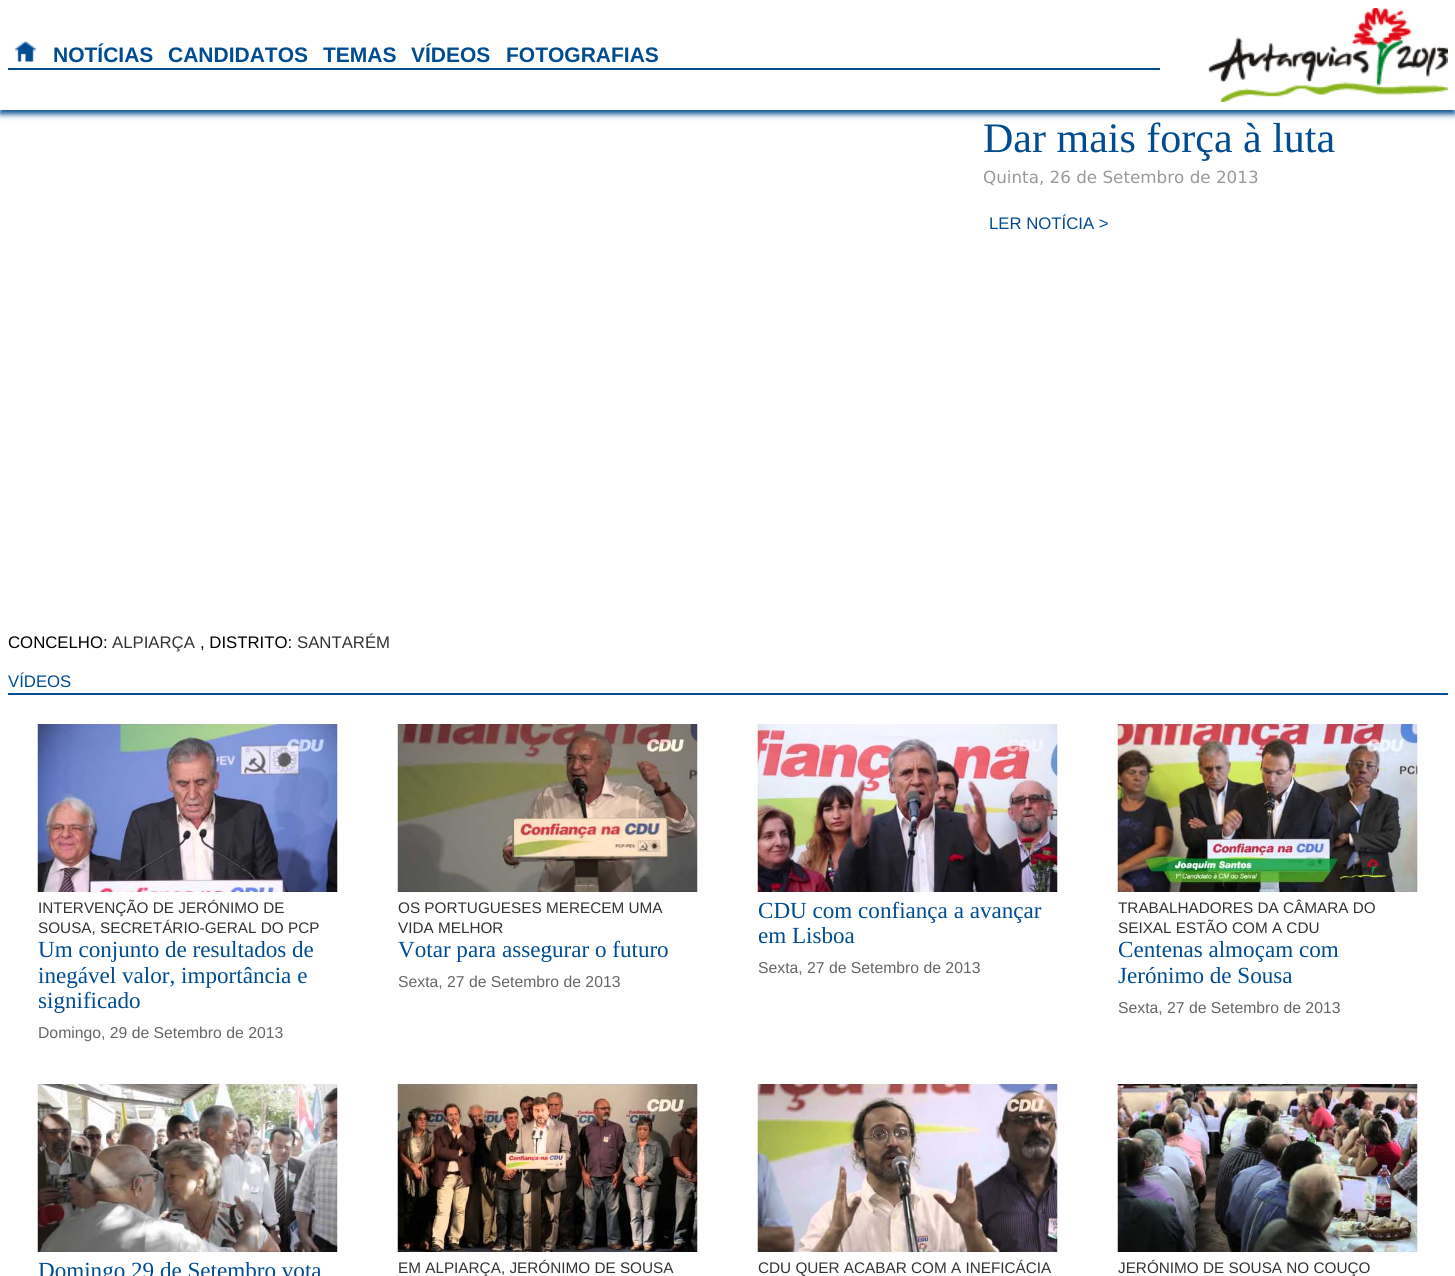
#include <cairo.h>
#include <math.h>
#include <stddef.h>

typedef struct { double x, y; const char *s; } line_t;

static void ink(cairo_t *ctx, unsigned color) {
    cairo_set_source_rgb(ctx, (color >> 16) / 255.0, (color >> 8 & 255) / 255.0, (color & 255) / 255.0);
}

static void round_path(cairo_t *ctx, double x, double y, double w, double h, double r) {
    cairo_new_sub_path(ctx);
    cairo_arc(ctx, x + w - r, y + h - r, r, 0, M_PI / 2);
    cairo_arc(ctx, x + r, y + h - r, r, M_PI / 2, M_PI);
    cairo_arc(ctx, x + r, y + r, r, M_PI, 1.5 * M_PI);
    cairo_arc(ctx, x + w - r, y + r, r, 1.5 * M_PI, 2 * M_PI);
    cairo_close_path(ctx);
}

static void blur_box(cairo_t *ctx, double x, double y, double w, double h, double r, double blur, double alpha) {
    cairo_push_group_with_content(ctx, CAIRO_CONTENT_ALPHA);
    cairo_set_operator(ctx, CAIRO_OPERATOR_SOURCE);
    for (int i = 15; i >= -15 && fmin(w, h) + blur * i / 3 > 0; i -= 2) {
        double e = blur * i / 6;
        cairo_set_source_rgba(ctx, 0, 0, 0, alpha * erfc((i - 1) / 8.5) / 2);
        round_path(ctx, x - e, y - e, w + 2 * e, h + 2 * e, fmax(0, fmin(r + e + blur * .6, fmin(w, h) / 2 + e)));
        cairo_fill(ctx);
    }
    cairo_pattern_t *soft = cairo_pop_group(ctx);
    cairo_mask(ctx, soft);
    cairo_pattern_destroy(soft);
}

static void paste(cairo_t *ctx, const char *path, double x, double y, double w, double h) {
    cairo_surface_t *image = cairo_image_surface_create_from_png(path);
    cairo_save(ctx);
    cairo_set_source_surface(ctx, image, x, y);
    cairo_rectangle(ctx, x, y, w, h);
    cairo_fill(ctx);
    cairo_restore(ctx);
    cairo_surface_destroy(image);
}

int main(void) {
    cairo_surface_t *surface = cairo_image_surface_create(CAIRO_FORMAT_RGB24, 1455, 1276);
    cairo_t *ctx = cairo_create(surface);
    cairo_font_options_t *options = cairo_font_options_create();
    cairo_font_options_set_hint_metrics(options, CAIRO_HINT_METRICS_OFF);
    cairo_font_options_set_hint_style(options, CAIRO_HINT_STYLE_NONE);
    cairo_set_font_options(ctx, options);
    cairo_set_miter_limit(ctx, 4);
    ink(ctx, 0xFFFFFF);
    cairo_paint(ctx);
    ink(ctx, 0x004C91);
    blur_box(ctx, 0, 5, 1455, 109, 0, 3, 1);
    ink(ctx, 0xFFFFFF);
    cairo_rectangle(ctx, 0, 0, 1455, 110);
    cairo_fill(ctx);
    paste(ctx, "media/1.png", 1208, 8, 240, 94);
    ink(ctx, 0x004C91);
    cairo_rectangle(ctx, 8, 68, 1152, 2);
    cairo_fill(ctx);
    paste(ctx, "media/2.png", 15, 41, 22, 21);
    cairo_select_font_face(ctx, "Liberation Sans", CAIRO_FONT_SLANT_NORMAL, CAIRO_FONT_WEIGHT_BOLD);
    cairo_set_font_size(ctx, 21);
    {
        static const line_t items[] = {
            {53, 62, "NOTÍCIAS"},
            {168, 62, "CANDIDATOS"},
            {323, 62, "TEMAS"},
            {411, 62, "VÍDEOS"},
            {506, 62, "FOTOGRAFIAS"},
        };
        for (size_t i = 0; i < sizeof items / sizeof *items; i++) {
            cairo_move_to(ctx, items[i].x, items[i].y);
            cairo_show_text(ctx, items[i].s);
        }
    }
    cairo_select_font_face(ctx, "Liberation Serif", CAIRO_FONT_SLANT_NORMAL, CAIRO_FONT_WEIGHT_NORMAL);
    cairo_set_font_size(ctx, 42);
    cairo_move_to(ctx, 983, 152);
    cairo_show_text(ctx, "Dar mais força à luta");
    cairo_select_font_face(ctx, "DejaVu Sans", CAIRO_FONT_SLANT_NORMAL, CAIRO_FONT_WEIGHT_NORMAL);
    cairo_set_font_size(ctx, 16.75);
    ink(ctx, 0x999999);
    cairo_move_to(ctx, 983, 183);
    cairo_show_text(ctx, "Quinta, 26 de Setembro de 2013");
    cairo_select_font_face(ctx, "Liberation Sans", CAIRO_FONT_SLANT_NORMAL, CAIRO_FONT_WEIGHT_NORMAL);
    ink(ctx, 0x004C91);
    cairo_move_to(ctx, 989, 229);
    cairo_show_text(ctx, "LER NOTÍCIA >");
    ink(ctx, 0x000000);
    cairo_move_to(ctx, 8, 648);
    cairo_show_text(ctx, "CONCELHO:");
    ink(ctx, 0x333333);
    cairo_move_to(ctx, 112, 648);
    cairo_show_text(ctx, "ALPIARÇA");
    ink(ctx, 0x000000);
    cairo_move_to(ctx, 200, 648);
    cairo_show_text(ctx, ", DISTRITO:");
    ink(ctx, 0x333333);
    cairo_move_to(ctx, 297, 648);
    cairo_show_text(ctx, "SANTARÉM");
    ink(ctx, 0x004C91);
    cairo_rectangle(ctx, 8, 693, 1440, 2);
    cairo_fill(ctx);
    cairo_move_to(ctx, 8, 687);
    cairo_show_text(ctx, "VÍDEOS");
    paste(ctx, "media/3.png", 37, 724, 301, 168);
    cairo_set_font_size(ctx, 15.3);
    ink(ctx, 0x333333);
    cairo_move_to(ctx, 38, 913);
    cairo_show_text(ctx, "INTERVENÇÃO DE JERÓNIMO DE");
    cairo_move_to(ctx, 38, 933);
    cairo_show_text(ctx, "SOUSA, SECRETÁRIO-GERAL DO PCP");
    cairo_select_font_face(ctx, "Liberation Serif", CAIRO_FONT_SLANT_NORMAL, CAIRO_FONT_WEIGHT_NORMAL);
    cairo_set_font_size(ctx, 23.1);
    ink(ctx, 0x004C91);
    {
        static const line_t items[] = {
            {38, 957, "Um conjunto de resultados de"},
            {38, 983, "inegável valor, importância e"},
            {38, 1008, "significado"},
        };
        for (size_t i = 0; i < sizeof items / sizeof *items; i++) {
            cairo_move_to(ctx, items[i].x, items[i].y);
            cairo_show_text(ctx, items[i].s);
        }
    }
    cairo_select_font_face(ctx, "Liberation Sans", CAIRO_FONT_SLANT_NORMAL, CAIRO_FONT_WEIGHT_NORMAL);
    cairo_set_font_size(ctx, 15.75);
    ink(ctx, 0x666666);
    cairo_move_to(ctx, 38, 1038);
    cairo_show_text(ctx, "Domingo, 29 de Setembro de 2013");
    paste(ctx, "media/4.png", 397, 724, 301, 168);
    cairo_set_font_size(ctx, 15.3);
    ink(ctx, 0x333333);
    cairo_move_to(ctx, 398, 913);
    cairo_show_text(ctx, "OS PORTUGUESES MERECEM UMA");
    cairo_move_to(ctx, 398, 933);
    cairo_show_text(ctx, "VIDA MELHOR");
    cairo_select_font_face(ctx, "Liberation Serif", CAIRO_FONT_SLANT_NORMAL, CAIRO_FONT_WEIGHT_NORMAL);
    cairo_set_font_size(ctx, 23.1);
    ink(ctx, 0x004C91);
    cairo_move_to(ctx, 398, 957);
    cairo_show_text(ctx, "Votar para assegurar o futuro");
    cairo_select_font_face(ctx, "Liberation Sans", CAIRO_FONT_SLANT_NORMAL, CAIRO_FONT_WEIGHT_NORMAL);
    cairo_set_font_size(ctx, 15.75);
    ink(ctx, 0x666666);
    cairo_move_to(ctx, 398, 987);
    cairo_show_text(ctx, "Sexta, 27 de Setembro de 2013");
    paste(ctx, "media/5.png", 757, 724, 301, 168);
    cairo_select_font_face(ctx, "Liberation Serif", CAIRO_FONT_SLANT_NORMAL, CAIRO_FONT_WEIGHT_NORMAL);
    cairo_set_font_size(ctx, 23.1);
    ink(ctx, 0x004C91);
    cairo_move_to(ctx, 758, 918);
    cairo_show_text(ctx, "CDU com confiança a avançar");
    cairo_move_to(ctx, 758, 943);
    cairo_show_text(ctx, "em Lisboa");
    cairo_select_font_face(ctx, "Liberation Sans", CAIRO_FONT_SLANT_NORMAL, CAIRO_FONT_WEIGHT_NORMAL);
    cairo_set_font_size(ctx, 15.75);
    ink(ctx, 0x666666);
    cairo_move_to(ctx, 758, 973);
    cairo_show_text(ctx, "Sexta, 27 de Setembro de 2013");
    paste(ctx, "media/6.png", 1117, 724, 301, 168);
    cairo_set_font_size(ctx, 15.3);
    ink(ctx, 0x333333);
    cairo_move_to(ctx, 1118, 913);
    cairo_show_text(ctx, "TRABALHADORES DA CÂMARA DO");
    cairo_move_to(ctx, 1118, 933);
    cairo_show_text(ctx, "SEIXAL ESTÃO COM A CDU");
    cairo_select_font_face(ctx, "Liberation Serif", CAIRO_FONT_SLANT_NORMAL, CAIRO_FONT_WEIGHT_NORMAL);
    cairo_set_font_size(ctx, 23.1);
    ink(ctx, 0x004C91);
    cairo_move_to(ctx, 1118, 957);
    cairo_show_text(ctx, "Centenas almoçam com");
    cairo_move_to(ctx, 1118, 983);
    cairo_show_text(ctx, "Jerónimo de Sousa");
    cairo_select_font_face(ctx, "Liberation Sans", CAIRO_FONT_SLANT_NORMAL, CAIRO_FONT_WEIGHT_NORMAL);
    cairo_set_font_size(ctx, 15.75);
    ink(ctx, 0x666666);
    cairo_move_to(ctx, 1118, 1013);
    cairo_show_text(ctx, "Sexta, 27 de Setembro de 2013");
    paste(ctx, "media/7.png", 37, 1084, 301, 168);
    cairo_select_font_face(ctx, "Liberation Serif", CAIRO_FONT_SLANT_NORMAL, CAIRO_FONT_WEIGHT_NORMAL);
    cairo_set_font_size(ctx, 23.1);
    ink(ctx, 0x004C91);
    cairo_move_to(ctx, 38, 1278);
    cairo_show_text(ctx, "Domingo 29 de Setembro vota");
    paste(ctx, "media/8.png", 397, 1084, 301, 168);
    cairo_select_font_face(ctx, "Liberation Sans", CAIRO_FONT_SLANT_NORMAL, CAIRO_FONT_WEIGHT_NORMAL);
    cairo_set_font_size(ctx, 15.3);
    ink(ctx, 0x333333);
    cairo_move_to(ctx, 398, 1273);
    cairo_show_text(ctx, "EM ALPIARÇA, JERÓNIMO DE SOUSA");
    paste(ctx, "media/9.png", 757, 1084, 301, 168);
    cairo_move_to(ctx, 758, 1273);
    cairo_show_text(ctx, "CDU QUER ACABAR COM A INEFICÁCIA");
    paste(ctx, "media/10.png", 1117, 1084, 301, 168);
    cairo_move_to(ctx, 1118, 1273);
    cairo_show_text(ctx, "JERÓNIMO DE SOUSA NO COUÇO");
    cairo_surface_write_to_png(surface, "image.png");
    cairo_font_options_destroy(options);
    cairo_destroy(ctx);
    cairo_surface_destroy(surface);
    return 0;
}
